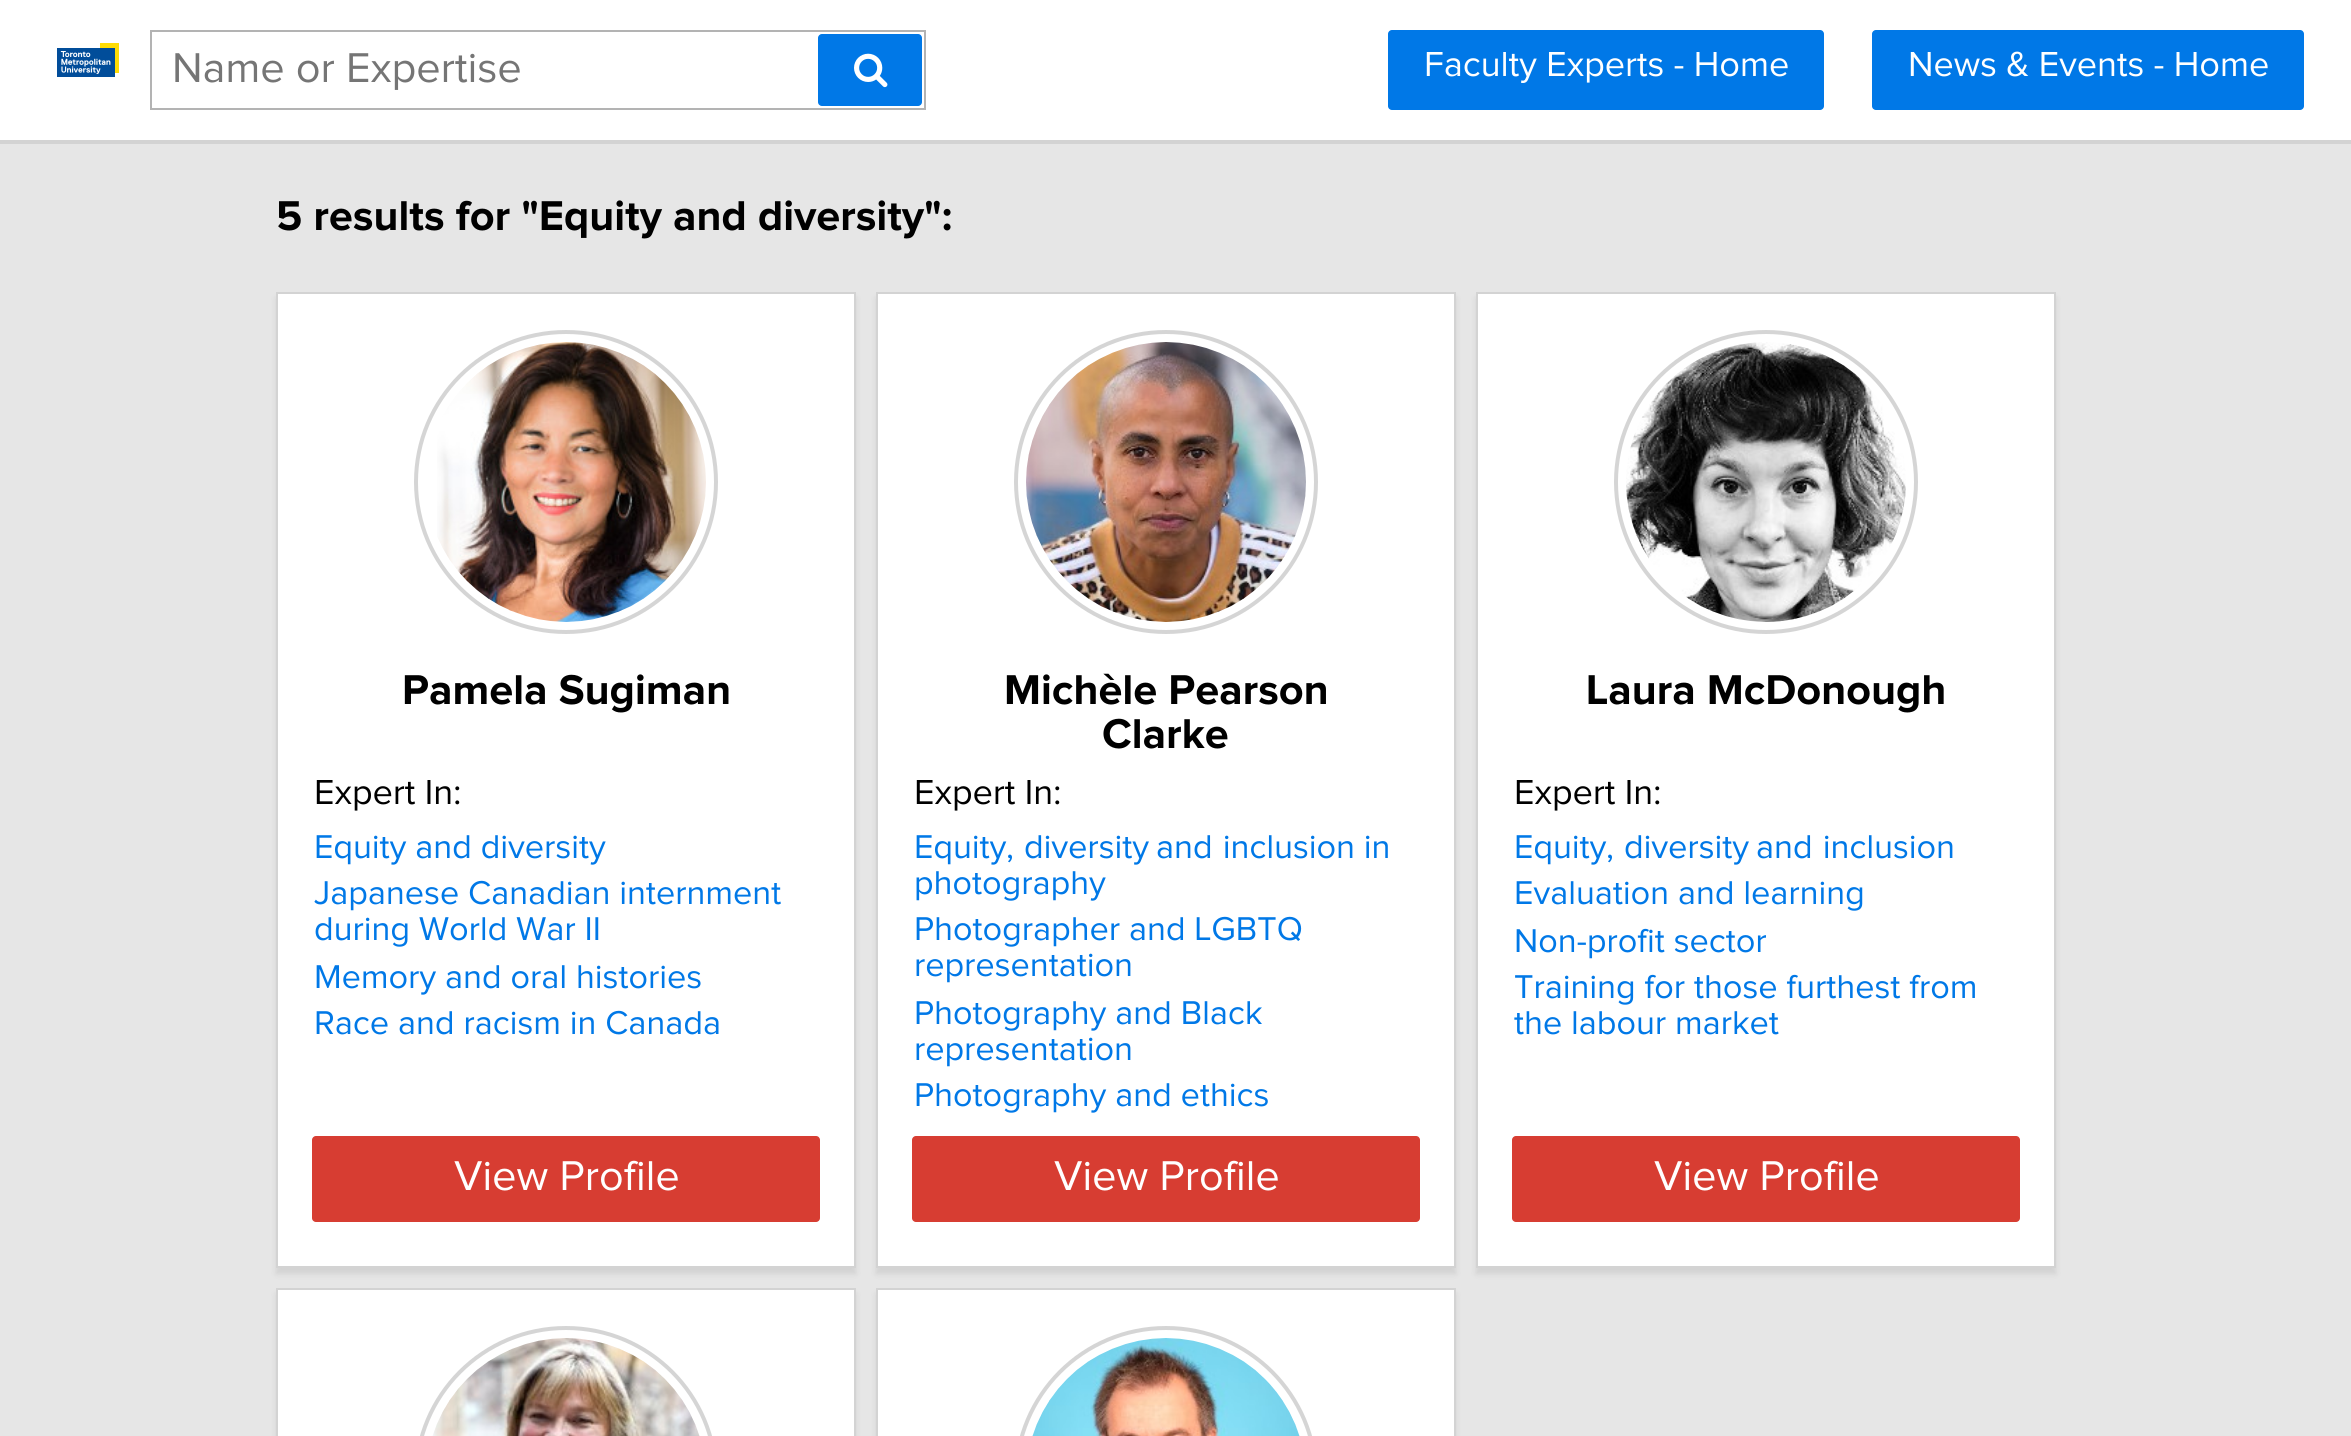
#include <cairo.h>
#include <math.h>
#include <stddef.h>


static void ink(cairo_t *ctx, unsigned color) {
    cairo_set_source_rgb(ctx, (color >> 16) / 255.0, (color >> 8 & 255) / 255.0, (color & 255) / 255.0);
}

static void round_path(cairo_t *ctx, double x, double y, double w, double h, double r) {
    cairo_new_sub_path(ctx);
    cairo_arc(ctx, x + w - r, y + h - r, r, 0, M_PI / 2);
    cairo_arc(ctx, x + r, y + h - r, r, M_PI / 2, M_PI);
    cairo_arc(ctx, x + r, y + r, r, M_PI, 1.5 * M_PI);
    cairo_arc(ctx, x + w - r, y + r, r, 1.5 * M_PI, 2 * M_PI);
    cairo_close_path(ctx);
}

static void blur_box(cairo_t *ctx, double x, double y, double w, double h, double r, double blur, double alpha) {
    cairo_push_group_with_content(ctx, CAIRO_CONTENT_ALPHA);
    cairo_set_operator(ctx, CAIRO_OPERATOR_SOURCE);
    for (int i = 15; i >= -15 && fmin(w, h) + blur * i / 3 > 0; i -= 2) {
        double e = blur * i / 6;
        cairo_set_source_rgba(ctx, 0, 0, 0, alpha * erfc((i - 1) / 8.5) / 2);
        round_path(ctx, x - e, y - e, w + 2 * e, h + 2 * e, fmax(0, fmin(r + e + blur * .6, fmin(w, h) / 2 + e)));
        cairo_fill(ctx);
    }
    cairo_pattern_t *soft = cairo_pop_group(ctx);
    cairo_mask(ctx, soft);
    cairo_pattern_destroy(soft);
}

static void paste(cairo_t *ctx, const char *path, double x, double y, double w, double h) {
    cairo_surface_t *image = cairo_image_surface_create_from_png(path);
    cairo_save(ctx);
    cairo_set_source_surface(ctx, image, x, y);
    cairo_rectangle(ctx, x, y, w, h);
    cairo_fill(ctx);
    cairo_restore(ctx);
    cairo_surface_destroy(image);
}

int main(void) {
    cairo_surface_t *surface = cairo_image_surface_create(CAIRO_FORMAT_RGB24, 2351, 1436);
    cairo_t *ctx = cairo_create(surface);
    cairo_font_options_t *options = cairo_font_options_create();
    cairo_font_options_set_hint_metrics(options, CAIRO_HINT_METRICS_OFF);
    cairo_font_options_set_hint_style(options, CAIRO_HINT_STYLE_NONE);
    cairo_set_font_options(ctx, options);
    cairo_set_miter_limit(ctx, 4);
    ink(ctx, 0xE6E6E6);
    cairo_paint(ctx);
    ink(ctx, 0xFFFFFF);
    cairo_rectangle(ctx, 0, 0, 2351, 140);
    cairo_fill(ctx);
    ink(ctx, 0xD3D3D3);
    cairo_rectangle(ctx, 0, 140, 2351, 4);
    cairo_fill(ctx);
    paste(ctx, "media/1.png", 57, 43, 62, 34);
    cairo_rectangle(ctx, 151, 31, 774, 78);
    ink(ctx, 0xB3B3B3);
    cairo_stroke(ctx);
    paste(ctx, "media/2.png", 175, 53, 345, 37);
    ink(ctx, 0x0078E7);
    round_path(ctx, 818, 34, 104, 72, 4);
    cairo_fill(ctx);
    paste(ctx, "media/3.png", 854, 53, 34, 35);
    round_path(ctx, 1388, 30, 436, 80, 4);
    cairo_fill(ctx);
    paste(ctx, "media/4.png", 1426, 52, 362, 31);
    round_path(ctx, 1872, 30, 432, 80, 4);
    cairo_fill(ctx);
    paste(ctx, "media/5.png", 1910, 51, 358, 26);
    paste(ctx, "media/6.png", 278, 200, 673, 39);
    ink(ctx, 0x000000);
    blur_box(ctx, 276, 298, 580, 976, 0, 3, 0.09);
    ink(ctx, 0xFFFFFF);
    cairo_rectangle(ctx, 277, 293, 578, 974);
    cairo_fill_preserve(ctx);
    ink(ctx, 0xD3D3D3);
    cairo_stroke(ctx);
    cairo_arc(ctx, 566, 482, 150, 0, 2 * M_PI);
    ink(ctx, 0xD5D5D5);
    cairo_set_line_width(ctx, 4);
    cairo_stroke(ctx);
    paste(ctx, "media/7.png", 437, 342, 269, 280);
    paste(ctx, "media/8.png", 404, 674, 325, 39);
    paste(ctx, "media/9.png", 316, 780, 144, 31);
    paste(ctx, "media/10.png", 316, 835, 290, 30);
    paste(ctx, "media/11.png", 314, 880, 467, 31);
    paste(ctx, "media/12.png", 315, 917, 284, 30);
    paste(ctx, "media/13.png", 316, 965, 385, 30);
    paste(ctx, "media/14.png", 316, 1010, 403, 25);
    ink(ctx, 0xD73D32);
    round_path(ctx, 312, 1136, 508, 86, 4);
    cairo_fill(ctx);
    paste(ctx, "media/15.png", 454, 1160, 224, 31);
    ink(ctx, 0x000000);
    blur_box(ctx, 876, 298, 580, 976, 0, 3, 0.09);
    ink(ctx, 0xFFFFFF);
    cairo_rectangle(ctx, 877, 293, 578, 974);
    cairo_fill_preserve(ctx);
    ink(ctx, 0xD3D3D3);
    cairo_set_line_width(ctx, 2);
    cairo_stroke(ctx);
    cairo_arc(ctx, 1166, 482, 150, 0, 2 * M_PI);
    ink(ctx, 0xD5D5D5);
    cairo_set_line_width(ctx, 4);
    cairo_stroke(ctx);
    paste(ctx, "media/16.png", 1026, 342, 280, 280);
    paste(ctx, "media/17.png", 1006, 673, 320, 32);
    paste(ctx, "media/18.png", 1103, 718, 125, 31);
    paste(ctx, "media/9.png", 916, 780, 144, 31);
    paste(ctx, "media/19.png", 916, 835, 91, 30);
    paste(ctx, "media/20.png", 1008, 854, 4, 9);
    paste(ctx, "media/21.png", 1025, 835, 124, 30);
    paste(ctx, "media/22.png", 1157, 835, 54, 24);
    paste(ctx, "media/23.png", 1225, 835, 163, 24);
    paste(ctx, "media/24.png", 916, 871, 190, 30);
    paste(ctx, "media/25.png", 916, 916, 386, 31);
    paste(ctx, "media/26.png", 916, 953, 215, 30);
    paste(ctx, "media/27.png", 916, 1001, 346, 30);
    paste(ctx, "media/26.png", 916, 1037, 215, 30);
    paste(ctx, "media/28.png", 916, 1083, 352, 30);
    ink(ctx, 0xD73D32);
    round_path(ctx, 912, 1136, 508, 86, 4);
    cairo_fill(ctx);
    paste(ctx, "media/15.png", 1054, 1160, 224, 31);
    ink(ctx, 0x000000);
    blur_box(ctx, 1476, 298, 580, 976, 0, 3, 0.09);
    ink(ctx, 0xFFFFFF);
    cairo_rectangle(ctx, 1477, 293, 578, 974);
    cairo_fill_preserve(ctx);
    ink(ctx, 0xD3D3D3);
    cairo_set_line_width(ctx, 2);
    cairo_stroke(ctx);
    cairo_arc(ctx, 1766, 482, 150, 0, 2 * M_PI);
    ink(ctx, 0xD5D5D5);
    cairo_set_line_width(ctx, 4);
    cairo_stroke(ctx);
    paste(ctx, "media/29.png", 1626, 342, 280, 280);
    paste(ctx, "media/30.png", 1588, 675, 356, 38);
    paste(ctx, "media/9.png", 1516, 780, 144, 31);
    paste(ctx, "media/19.png", 1516, 835, 91, 30);
    paste(ctx, "media/20.png", 1608, 854, 4, 9);
    paste(ctx, "media/21.png", 1625, 835, 124, 30);
    paste(ctx, "media/22.png", 1757, 835, 54, 24);
    paste(ctx, "media/31.png", 1825, 835, 128, 24);
    paste(ctx, "media/32.png", 1516, 881, 347, 30);
    paste(ctx, "media/33.png", 1516, 928, 250, 31);
    paste(ctx, "media/34.png", 1515, 974, 460, 31);
    paste(ctx, "media/35.png", 1514, 1011, 265, 24);
    ink(ctx, 0xD73D32);
    round_path(ctx, 1512, 1136, 508, 86, 4);
    cairo_fill(ctx);
    paste(ctx, "media/15.png", 1654, 1160, 224, 31);
    ink(ctx, 0x000000);
    blur_box(ctx, 276, 1294, 580, 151, 0, 3, 0.09);
    ink(ctx, 0xFFFFFF);
    cairo_rectangle(ctx, 277, 1289, 578, 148);
    cairo_fill_preserve(ctx);
    ink(ctx, 0xD3D3D3);
    cairo_set_line_width(ctx, 2);
    cairo_stroke(ctx);
    round_path(ctx, 416, 1328, 300, 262, 150);
    ink(ctx, 0xD5D5D5);
    cairo_set_line_width(ctx, 4);
    cairo_stroke(ctx);
    paste(ctx, "media/36.png", 432, 1338, 268, 98);
    ink(ctx, 0x000000);
    blur_box(ctx, 876, 1294, 580, 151, 0, 3, 0.09);
    ink(ctx, 0xFFFFFF);
    cairo_rectangle(ctx, 877, 1289, 578, 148);
    cairo_fill_preserve(ctx);
    ink(ctx, 0xD3D3D3);
    cairo_set_line_width(ctx, 2);
    cairo_stroke(ctx);
    round_path(ctx, 1016, 1328, 300, 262, 150);
    ink(ctx, 0xD5D5D5);
    cairo_set_line_width(ctx, 4);
    cairo_stroke(ctx);
    paste(ctx, "media/37.png", 1032, 1338, 268, 98);
    cairo_surface_write_to_png(surface, "image.png");
    cairo_font_options_destroy(options);
    cairo_destroy(ctx);
    cairo_surface_destroy(surface);
    return 0;
}
